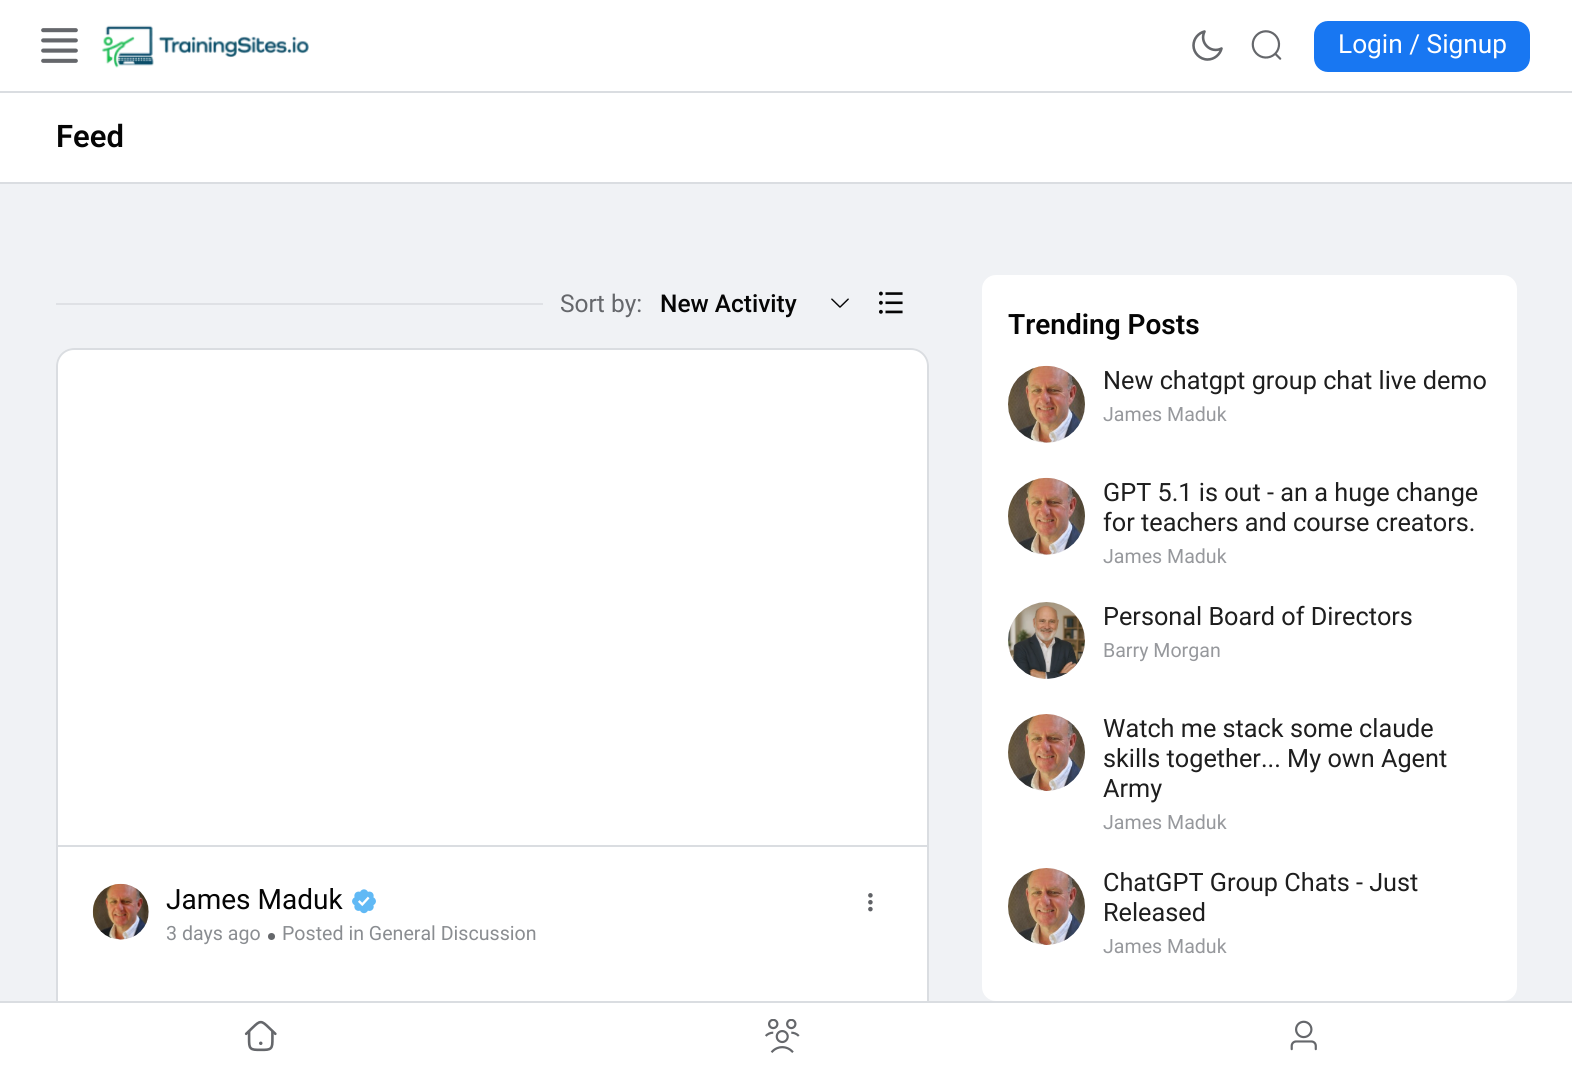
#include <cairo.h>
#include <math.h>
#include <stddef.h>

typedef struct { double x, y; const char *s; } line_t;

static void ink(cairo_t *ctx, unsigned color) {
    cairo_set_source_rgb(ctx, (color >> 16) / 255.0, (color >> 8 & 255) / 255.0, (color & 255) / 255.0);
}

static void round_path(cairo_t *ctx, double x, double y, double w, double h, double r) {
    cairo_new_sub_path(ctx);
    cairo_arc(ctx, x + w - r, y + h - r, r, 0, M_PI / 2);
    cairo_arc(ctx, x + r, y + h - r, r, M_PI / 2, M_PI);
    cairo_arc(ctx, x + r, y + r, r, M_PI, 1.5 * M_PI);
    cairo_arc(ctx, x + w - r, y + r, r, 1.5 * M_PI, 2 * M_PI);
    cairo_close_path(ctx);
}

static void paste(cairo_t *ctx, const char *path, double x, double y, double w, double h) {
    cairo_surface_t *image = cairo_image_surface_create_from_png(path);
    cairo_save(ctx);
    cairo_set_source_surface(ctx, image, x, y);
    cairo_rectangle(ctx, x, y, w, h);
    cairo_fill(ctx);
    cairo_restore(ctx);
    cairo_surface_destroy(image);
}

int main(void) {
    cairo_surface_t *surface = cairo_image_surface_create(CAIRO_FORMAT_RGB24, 1572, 1072);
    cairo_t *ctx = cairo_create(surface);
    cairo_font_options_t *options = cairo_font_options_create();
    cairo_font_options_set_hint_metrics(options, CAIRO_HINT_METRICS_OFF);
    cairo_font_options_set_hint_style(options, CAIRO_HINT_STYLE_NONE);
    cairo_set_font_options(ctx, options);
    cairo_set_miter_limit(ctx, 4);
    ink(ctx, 0xF0F2F5);
    cairo_paint(ctx);
    ink(ctx, 0xFFFFFF);
    cairo_rectangle(ctx, 0, 0, 1572, 91);
    cairo_fill(ctx);
    ink(ctx, 0xDADDE1);
    cairo_rectangle(ctx, 0, 91, 1572, 2);
    cairo_fill(ctx);
    paste(ctx, "media/1.png", 41, 28, 37, 35);
    paste(ctx, "media/2.png", 101, 25, 208, 43);
    cairo_new_path(ctx);
    cairo_move_to(ctx, 1221.5, 48.5);
    cairo_curve_to(ctx, 1210.5, 54, 1199, 42.5, 1204.5, 31.5);
    cairo_curve_to(ctx, 1198.5, 33, 1193.5, 38.5, 1193.5, 45.5);
    cairo_curve_to(ctx, 1193.5, 53, 1200, 59.5, 1207.5, 59.5);
    cairo_curve_to(ctx, 1214.5, 59.5, 1220, 54.5, 1221.5, 48.5);
    cairo_close_path(ctx);
    ink(ctx, 0x65676B);
    cairo_set_line_width(ctx, 2.6);
    cairo_set_line_cap(ctx, CAIRO_LINE_CAP_ROUND);
    cairo_set_line_join(ctx, CAIRO_LINE_JOIN_ROUND);
    cairo_stroke(ctx);
    paste(ctx, "media/3.png", 1251, 30, 31, 30);
    ink(ctx, 0x1877F2);
    round_path(ctx, 1315, 22, 214, 49, 13);
    cairo_fill_preserve(ctx);
    cairo_set_line_width(ctx, 2);
    cairo_set_line_cap(ctx, CAIRO_LINE_CAP_BUTT);
    cairo_set_line_join(ctx, CAIRO_LINE_JOIN_MITER);
    cairo_stroke(ctx);
    cairo_select_font_face(ctx, "Roboto", CAIRO_FONT_SLANT_NORMAL, CAIRO_FONT_WEIGHT_NORMAL);
    cairo_set_font_size(ctx, 26.25);
    ink(ctx, 0xFFFFFF);
    cairo_move_to(ctx, 1338, 53);
    cairo_show_text(ctx, "Login / Signup");
    cairo_rectangle(ctx, 0, 93, 1572, 89);
    cairo_fill(ctx);
    ink(ctx, 0xDADDE1);
    cairo_rectangle(ctx, 0, 182, 1572, 2);
    cairo_fill(ctx);
    cairo_select_font_face(ctx, "Roboto SemiBold", CAIRO_FONT_SLANT_NORMAL, CAIRO_FONT_WEIGHT_NORMAL);
    cairo_set_font_size(ctx, 31);
    ink(ctx, 0x050505);
    cairo_move_to(ctx, 56, 147);
    cairo_show_text(ctx, "Feed");
    ink(ctx, 0xDFE1E5);
    cairo_rectangle(ctx, 56, 303, 487, 2);
    cairo_fill(ctx);
    cairo_select_font_face(ctx, "Roboto", CAIRO_FONT_SLANT_NORMAL, CAIRO_FONT_WEIGHT_NORMAL);
    cairo_set_font_size(ctx, 24.5);
    ink(ctx, 0x65676B);
    cairo_move_to(ctx, 560, 312);
    cairo_show_text(ctx, "Sort by:");
    cairo_select_font_face(ctx, "Roboto Medium", CAIRO_FONT_SLANT_NORMAL, CAIRO_FONT_WEIGHT_NORMAL);
    ink(ctx, 0x050505);
    cairo_move_to(ctx, 660, 312);
    cairo_show_text(ctx, "New Activity");
    paste(ctx, "media/4.png", 831, 298, 18, 10);
    paste(ctx, "media/5.png", 879, 291, 24, 23);
    ink(ctx, 0xFFFFFF);
    cairo_new_path(ctx);
    cairo_move_to(ctx, 74, 348);
    cairo_line_to(ctx, 911, 348);
    cairo_curve_to(ctx, 921, 348, 929, 356, 929, 366);
    cairo_line_to(ctx, 929, 1064);
    cairo_line_to(ctx, 56, 1064);
    cairo_line_to(ctx, 56, 366);
    cairo_curve_to(ctx, 56, 356, 64, 348, 74, 348);
    cairo_close_path(ctx);
    cairo_fill(ctx);
    round_path(ctx, 57, 349, 871, 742, 17);
    ink(ctx, 0xDADDE1);
    cairo_stroke(ctx);
    cairo_rectangle(ctx, 58, 845, 870, 2);
    cairo_fill(ctx);
    paste(ctx, "media/6.png", 92, 883, 57, 57);
    cairo_select_font_face(ctx, "Roboto", CAIRO_FONT_SLANT_NORMAL, CAIRO_FONT_WEIGHT_NORMAL);
    cairo_set_font_size(ctx, 28);
    ink(ctx, 0x050505);
    cairo_move_to(ctx, 166, 909);
    cairo_show_text(ctx, "James Maduk");
    paste(ctx, "media/7.png", 352, 889, 24, 25);
    cairo_set_font_size(ctx, 19.6);
    ink(ctx, 0x8A8D91);
    cairo_move_to(ctx, 166, 940);
    cairo_show_text(ctx, "3 days ago");
    ink(ctx, 0x65676B);
    cairo_new_path(ctx);
    cairo_arc(ctx, 271.5, 936.5, 3.5, 0, 2 * M_PI);
    cairo_fill(ctx);
    ink(ctx, 0x8A8D91);
    cairo_move_to(ctx, 282, 940);
    cairo_show_text(ctx, "Posted in General Discussion");
    paste(ctx, "media/8.png", 868, 893, 5, 19);
    ink(ctx, 0xFFFFFF);
    round_path(ctx, 982, 275, 535, 726, 14);
    cairo_fill(ctx);
    cairo_select_font_face(ctx, "Roboto SemiBold", CAIRO_FONT_SLANT_NORMAL, CAIRO_FONT_WEIGHT_NORMAL);
    cairo_set_font_size(ctx, 28);
    ink(ctx, 0x050505);
    cairo_move_to(ctx, 1008, 334);
    cairo_show_text(ctx, "Trending Posts");
    ink(ctx, 0xF2F3F6);
    cairo_new_path(ctx);
    cairo_arc(ctx, 1046.5, 404.5, 38.5, 0, 2 * M_PI);
    cairo_fill(ctx);
    paste(ctx, "media/9.png", 1008, 365, 77, 78);
    cairo_select_font_face(ctx, "Roboto", CAIRO_FONT_SLANT_NORMAL, CAIRO_FONT_WEIGHT_NORMAL);
    cairo_set_font_size(ctx, 25.25);
    ink(ctx, 0x1E1E1E);
    cairo_move_to(ctx, 1103, 389);
    cairo_show_text(ctx, "New chatgpt group chat live demo");
    cairo_set_font_size(ctx, 19.6);
    ink(ctx, 0x96989C);
    cairo_move_to(ctx, 1103, 421);
    cairo_show_text(ctx, "James Maduk");
    ink(ctx, 0xF2F3F6);
    cairo_new_path(ctx);
    cairo_arc(ctx, 1046.5, 516.5, 38.5, 0, 2 * M_PI);
    cairo_fill(ctx);
    paste(ctx, "media/10.png", 1008, 477, 77, 78);
    cairo_set_font_size(ctx, 25.25);
    ink(ctx, 0x1E1E1E);
    cairo_move_to(ctx, 1103, 501);
    cairo_show_text(ctx, "GPT 5.1 is out - an a huge change");
    cairo_move_to(ctx, 1103, 531);
    cairo_show_text(ctx, "for teachers and course creators.");
    cairo_set_font_size(ctx, 19.6);
    ink(ctx, 0x96989C);
    cairo_move_to(ctx, 1103, 563);
    cairo_show_text(ctx, "James Maduk");
    ink(ctx, 0xF2F3F6);
    cairo_new_path(ctx);
    cairo_arc(ctx, 1046.5, 640.5, 38.5, 0, 2 * M_PI);
    cairo_fill(ctx);
    paste(ctx, "media/11.png", 1008, 602, 77, 77);
    cairo_set_font_size(ctx, 25.25);
    ink(ctx, 0x1E1E1E);
    cairo_move_to(ctx, 1103, 625);
    cairo_show_text(ctx, "Personal Board of Directors");
    cairo_set_font_size(ctx, 19.6);
    ink(ctx, 0x96989C);
    cairo_move_to(ctx, 1103, 657);
    cairo_show_text(ctx, "Barry Morgan");
    ink(ctx, 0xF2F3F6);
    cairo_new_path(ctx);
    cairo_arc(ctx, 1046.5, 752.5, 38.5, 0, 2 * M_PI);
    cairo_fill(ctx);
    paste(ctx, "media/12.png", 1008, 714, 77, 77);
    cairo_set_font_size(ctx, 25.25);
    ink(ctx, 0x1E1E1E);
    {
        static const line_t items[] = {
            {1103, 737, "Watch me stack some claude"},
            {1103, 767, "skills together... My own Agent"},
            {1103, 797, "Army"},
        };
        for (size_t i = 0; i < sizeof items / sizeof *items; i++) {
            cairo_move_to(ctx, items[i].x, items[i].y);
            cairo_show_text(ctx, items[i].s);
        }
    }
    cairo_set_font_size(ctx, 19.6);
    ink(ctx, 0x96989C);
    cairo_move_to(ctx, 1103, 829);
    cairo_show_text(ctx, "James Maduk");
    ink(ctx, 0xF2F3F6);
    cairo_new_path(ctx);
    cairo_arc(ctx, 1046.5, 906.5, 38.5, 0, 2 * M_PI);
    cairo_fill(ctx);
    paste(ctx, "media/13.png", 1008, 868, 77, 77);
    cairo_set_font_size(ctx, 25.25);
    ink(ctx, 0x1E1E1E);
    cairo_move_to(ctx, 1103, 891);
    cairo_show_text(ctx, "ChatGPT Group Chats - Just");
    cairo_move_to(ctx, 1103, 921);
    cairo_show_text(ctx, "Released");
    cairo_set_font_size(ctx, 19.6);
    ink(ctx, 0x96989C);
    cairo_move_to(ctx, 1103, 953);
    cairo_show_text(ctx, "James Maduk");
    ink(ctx, 0xFFFFFF);
    cairo_rectangle(ctx, 0, 1003, 1572, 69);
    cairo_fill(ctx);
    ink(ctx, 0xDADDE1);
    cairo_rectangle(ctx, 0, 1001, 1572, 2);
    cairo_fill(ctx);
    paste(ctx, "media/14.png", 244, 1020, 33, 32);
    paste(ctx, "media/15.png", 765, 1019, 35, 34);
    paste(ctx, "media/16.png", 1290, 1020, 27, 31);
    cairo_surface_write_to_png(surface, "image.png");
    cairo_font_options_destroy(options);
    cairo_destroy(ctx);
    cairo_surface_destroy(surface);
    return 0;
}
